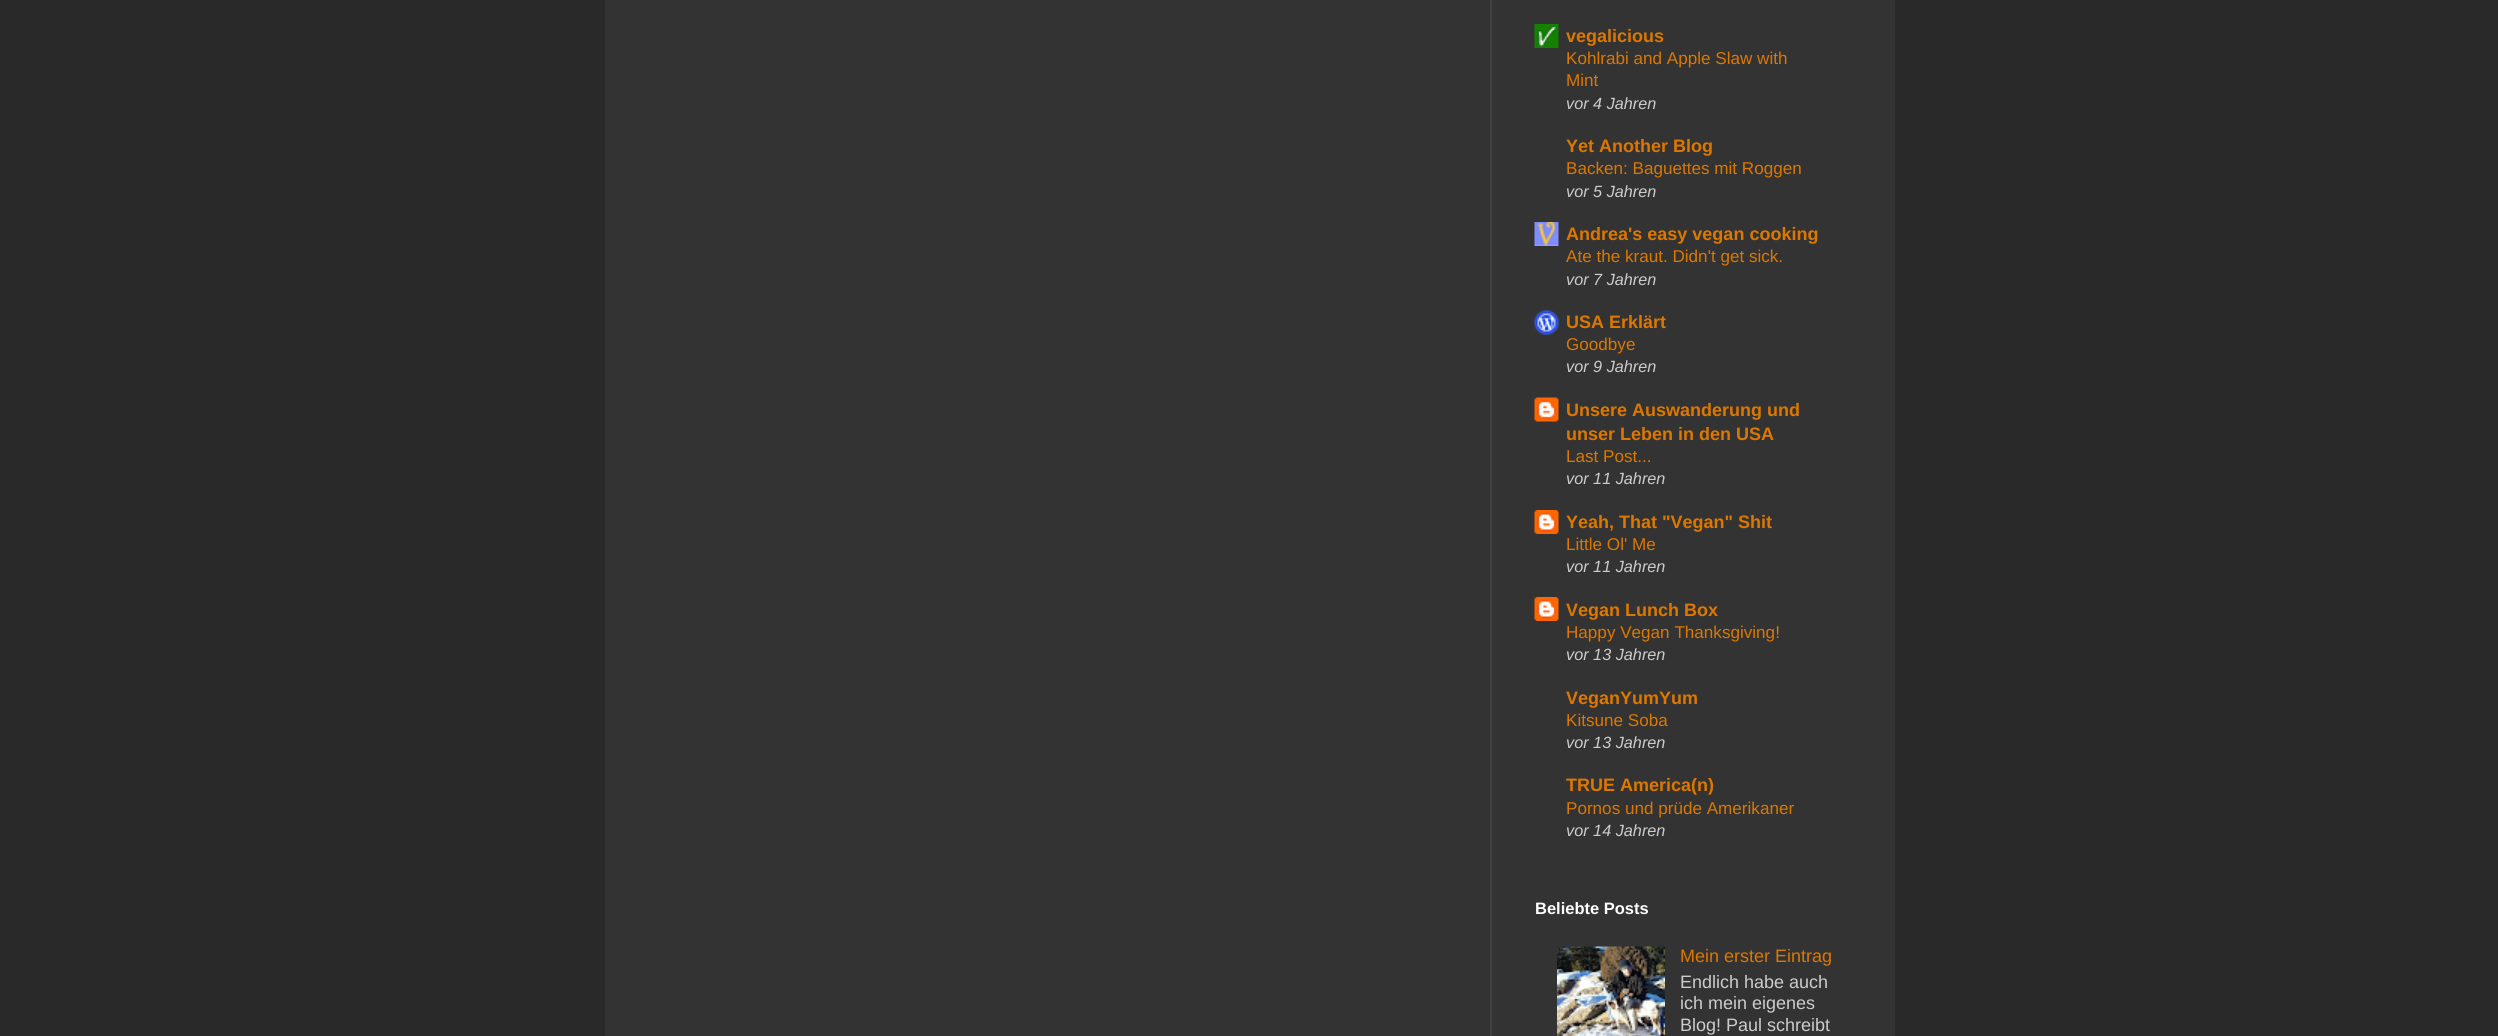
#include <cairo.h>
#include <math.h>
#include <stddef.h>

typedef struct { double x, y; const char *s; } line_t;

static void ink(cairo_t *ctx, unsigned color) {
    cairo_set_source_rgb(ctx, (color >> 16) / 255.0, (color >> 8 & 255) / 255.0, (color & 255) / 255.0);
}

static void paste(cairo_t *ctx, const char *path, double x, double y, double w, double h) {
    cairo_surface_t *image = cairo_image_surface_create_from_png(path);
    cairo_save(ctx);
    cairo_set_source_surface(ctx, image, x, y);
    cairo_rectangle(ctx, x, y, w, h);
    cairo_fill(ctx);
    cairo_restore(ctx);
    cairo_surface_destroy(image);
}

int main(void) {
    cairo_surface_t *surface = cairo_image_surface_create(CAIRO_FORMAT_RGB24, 2498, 1036);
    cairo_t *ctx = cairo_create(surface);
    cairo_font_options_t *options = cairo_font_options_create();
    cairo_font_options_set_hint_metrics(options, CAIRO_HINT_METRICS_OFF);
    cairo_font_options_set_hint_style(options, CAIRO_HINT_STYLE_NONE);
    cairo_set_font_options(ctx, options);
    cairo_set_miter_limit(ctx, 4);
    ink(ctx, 0x292929);
    cairo_paint(ctx);
    ink(ctx, 0x333333);
    cairo_rectangle(ctx, 605, 0, 1290, 1036);
    cairo_fill(ctx);
    ink(ctx, 0x404040);
    cairo_rectangle(ctx, 1490, 0, 2, 1036);
    cairo_fill(ctx);
    paste(ctx, "media/1.png", 1534, 24, 25, 24);
    cairo_select_font_face(ctx, "Liberation Sans", CAIRO_FONT_SLANT_NORMAL, CAIRO_FONT_WEIGHT_BOLD);
    cairo_set_font_size(ctx, 18);
    ink(ctx, 0xDD7700);
    cairo_move_to(ctx, 1566, 42);
    cairo_show_text(ctx, "vegalicious");
    cairo_select_font_face(ctx, "Liberation Sans", CAIRO_FONT_SLANT_NORMAL, CAIRO_FONT_WEIGHT_NORMAL);
    cairo_set_font_size(ctx, 17.1);
    cairo_move_to(ctx, 1566, 64);
    cairo_show_text(ctx, "Kohlrabi and Apple Slaw with");
    cairo_move_to(ctx, 1566, 86);
    cairo_show_text(ctx, "Mint");
    cairo_select_font_face(ctx, "Liberation Sans", CAIRO_FONT_SLANT_ITALIC, CAIRO_FONT_WEIGHT_NORMAL);
    cairo_set_font_size(ctx, 16.25);
    ink(ctx, 0xCCCCCC);
    cairo_move_to(ctx, 1566, 109);
    cairo_show_text(ctx, "vor 4 Jahren");
    cairo_select_font_face(ctx, "Liberation Sans", CAIRO_FONT_SLANT_NORMAL, CAIRO_FONT_WEIGHT_BOLD);
    cairo_set_font_size(ctx, 18);
    ink(ctx, 0xDD7700);
    cairo_move_to(ctx, 1566, 152);
    cairo_show_text(ctx, "Yet Another Blog");
    cairo_select_font_face(ctx, "Liberation Sans", CAIRO_FONT_SLANT_NORMAL, CAIRO_FONT_WEIGHT_NORMAL);
    cairo_set_font_size(ctx, 17.1);
    cairo_move_to(ctx, 1566, 174);
    cairo_show_text(ctx, "Backen: Baguettes mit Roggen");
    cairo_select_font_face(ctx, "Liberation Sans", CAIRO_FONT_SLANT_ITALIC, CAIRO_FONT_WEIGHT_NORMAL);
    cairo_set_font_size(ctx, 16.25);
    ink(ctx, 0xCCCCCC);
    cairo_move_to(ctx, 1566, 197);
    cairo_show_text(ctx, "vor 5 Jahren");
    paste(ctx, "media/2.png", 1534, 222, 25, 24);
    cairo_select_font_face(ctx, "Liberation Sans", CAIRO_FONT_SLANT_NORMAL, CAIRO_FONT_WEIGHT_BOLD);
    cairo_set_font_size(ctx, 18);
    ink(ctx, 0xDD7700);
    cairo_move_to(ctx, 1566, 240);
    cairo_show_text(ctx, "Andrea's easy vegan cooking");
    cairo_select_font_face(ctx, "Liberation Sans", CAIRO_FONT_SLANT_NORMAL, CAIRO_FONT_WEIGHT_NORMAL);
    cairo_set_font_size(ctx, 17.1);
    cairo_move_to(ctx, 1566, 262);
    cairo_show_text(ctx, "Ate the kraut. Didn't get sick.");
    cairo_select_font_face(ctx, "Liberation Sans", CAIRO_FONT_SLANT_ITALIC, CAIRO_FONT_WEIGHT_NORMAL);
    cairo_set_font_size(ctx, 16.25);
    ink(ctx, 0xCCCCCC);
    cairo_move_to(ctx, 1566, 285);
    cairo_show_text(ctx, "vor 7 Jahren");
    paste(ctx, "media/3.png", 1534, 310, 25, 25);
    cairo_select_font_face(ctx, "Liberation Sans", CAIRO_FONT_SLANT_NORMAL, CAIRO_FONT_WEIGHT_BOLD);
    cairo_set_font_size(ctx, 18);
    ink(ctx, 0xDD7700);
    cairo_move_to(ctx, 1566, 328);
    cairo_show_text(ctx, "USA Erklärt");
    cairo_select_font_face(ctx, "Liberation Sans", CAIRO_FONT_SLANT_NORMAL, CAIRO_FONT_WEIGHT_NORMAL);
    cairo_set_font_size(ctx, 17.1);
    cairo_move_to(ctx, 1566, 350);
    cairo_show_text(ctx, "Goodbye");
    cairo_select_font_face(ctx, "Liberation Sans", CAIRO_FONT_SLANT_ITALIC, CAIRO_FONT_WEIGHT_NORMAL);
    cairo_set_font_size(ctx, 16.25);
    ink(ctx, 0xCCCCCC);
    cairo_move_to(ctx, 1566, 372);
    cairo_show_text(ctx, "vor 9 Jahren");
    paste(ctx, "media/4.png", 1534, 397, 25, 25);
    cairo_select_font_face(ctx, "Liberation Sans", CAIRO_FONT_SLANT_NORMAL, CAIRO_FONT_WEIGHT_BOLD);
    cairo_set_font_size(ctx, 18);
    ink(ctx, 0xDD7700);
    cairo_move_to(ctx, 1566, 416);
    cairo_show_text(ctx, "Unsere Auswanderung und");
    cairo_move_to(ctx, 1566, 440);
    cairo_show_text(ctx, "unser Leben in den USA");
    cairo_select_font_face(ctx, "Liberation Sans", CAIRO_FONT_SLANT_NORMAL, CAIRO_FONT_WEIGHT_NORMAL);
    cairo_set_font_size(ctx, 17.1);
    cairo_move_to(ctx, 1566, 462);
    cairo_show_text(ctx, "Last Post...");
    cairo_select_font_face(ctx, "Liberation Sans", CAIRO_FONT_SLANT_ITALIC, CAIRO_FONT_WEIGHT_NORMAL);
    cairo_set_font_size(ctx, 16.25);
    ink(ctx, 0xCCCCCC);
    cairo_move_to(ctx, 1566, 484);
    cairo_show_text(ctx, "vor 11 Jahren");
    paste(ctx, "media/5.png", 1534, 510, 25, 24);
    cairo_select_font_face(ctx, "Liberation Sans", CAIRO_FONT_SLANT_NORMAL, CAIRO_FONT_WEIGHT_BOLD);
    cairo_set_font_size(ctx, 18);
    ink(ctx, 0xDD7700);
    cairo_move_to(ctx, 1566, 528);
    cairo_show_text(ctx, "Yeah, That \"Vegan\" Shit");
    cairo_select_font_face(ctx, "Liberation Sans", CAIRO_FONT_SLANT_NORMAL, CAIRO_FONT_WEIGHT_NORMAL);
    cairo_set_font_size(ctx, 17.1);
    cairo_move_to(ctx, 1566, 550);
    cairo_show_text(ctx, "Little Ol' Me");
    cairo_select_font_face(ctx, "Liberation Sans", CAIRO_FONT_SLANT_ITALIC, CAIRO_FONT_WEIGHT_NORMAL);
    cairo_set_font_size(ctx, 16.25);
    ink(ctx, 0xCCCCCC);
    cairo_move_to(ctx, 1566, 572);
    cairo_show_text(ctx, "vor 11 Jahren");
    paste(ctx, "media/5.png", 1534, 597, 25, 24);
    cairo_select_font_face(ctx, "Liberation Sans", CAIRO_FONT_SLANT_NORMAL, CAIRO_FONT_WEIGHT_BOLD);
    cairo_set_font_size(ctx, 18);
    ink(ctx, 0xDD7700);
    cairo_move_to(ctx, 1566, 616);
    cairo_show_text(ctx, "Vegan Lunch Box");
    cairo_select_font_face(ctx, "Liberation Sans", CAIRO_FONT_SLANT_NORMAL, CAIRO_FONT_WEIGHT_NORMAL);
    cairo_set_font_size(ctx, 17.1);
    cairo_move_to(ctx, 1566, 638);
    cairo_show_text(ctx, "Happy Vegan Thanksgiving!");
    cairo_select_font_face(ctx, "Liberation Sans", CAIRO_FONT_SLANT_ITALIC, CAIRO_FONT_WEIGHT_NORMAL);
    cairo_set_font_size(ctx, 16.25);
    ink(ctx, 0xCCCCCC);
    cairo_move_to(ctx, 1566, 660);
    cairo_show_text(ctx, "vor 13 Jahren");
    cairo_select_font_face(ctx, "Liberation Sans", CAIRO_FONT_SLANT_NORMAL, CAIRO_FONT_WEIGHT_BOLD);
    cairo_set_font_size(ctx, 18);
    ink(ctx, 0xDD7700);
    cairo_move_to(ctx, 1566, 704);
    cairo_show_text(ctx, "VeganYumYum");
    cairo_select_font_face(ctx, "Liberation Sans", CAIRO_FONT_SLANT_NORMAL, CAIRO_FONT_WEIGHT_NORMAL);
    cairo_set_font_size(ctx, 17.1);
    cairo_move_to(ctx, 1566, 726);
    cairo_show_text(ctx, "Kitsune Soba");
    cairo_select_font_face(ctx, "Liberation Sans", CAIRO_FONT_SLANT_ITALIC, CAIRO_FONT_WEIGHT_NORMAL);
    cairo_set_font_size(ctx, 16.25);
    ink(ctx, 0xCCCCCC);
    cairo_move_to(ctx, 1566, 748);
    cairo_show_text(ctx, "vor 13 Jahren");
    cairo_select_font_face(ctx, "Liberation Sans", CAIRO_FONT_SLANT_NORMAL, CAIRO_FONT_WEIGHT_BOLD);
    cairo_set_font_size(ctx, 18);
    ink(ctx, 0xDD7700);
    cairo_move_to(ctx, 1566, 791);
    cairo_show_text(ctx, "TRUE America(n)");
    cairo_select_font_face(ctx, "Liberation Sans", CAIRO_FONT_SLANT_NORMAL, CAIRO_FONT_WEIGHT_NORMAL);
    cairo_set_font_size(ctx, 17.1);
    cairo_move_to(ctx, 1566, 814);
    cairo_show_text(ctx, "Pornos und prüde Amerikaner");
    cairo_select_font_face(ctx, "Liberation Sans", CAIRO_FONT_SLANT_ITALIC, CAIRO_FONT_WEIGHT_NORMAL);
    cairo_set_font_size(ctx, 16.25);
    ink(ctx, 0xCCCCCC);
    cairo_move_to(ctx, 1566, 836);
    cairo_show_text(ctx, "vor 14 Jahren");
    cairo_select_font_face(ctx, "Liberation Sans", CAIRO_FONT_SLANT_NORMAL, CAIRO_FONT_WEIGHT_BOLD);
    cairo_set_font_size(ctx, 16.5);
    ink(ctx, 0xFFFFFF);
    cairo_move_to(ctx, 1535, 914);
    cairo_show_text(ctx, "Beliebte Posts");
    paste(ctx, "media/6.png", 1557, 946, 108, 90);
    cairo_select_font_face(ctx, "Liberation Sans", CAIRO_FONT_SLANT_NORMAL, CAIRO_FONT_WEIGHT_NORMAL);
    cairo_set_font_size(ctx, 18);
    ink(ctx, 0xDD7700);
    cairo_move_to(ctx, 1680, 962);
    cairo_show_text(ctx, "Mein erster Eintrag");
    ink(ctx, 0xCCCCCC);
    {
        static const line_t items[] = {
            {1680, 988, "Endlich habe auch"},
            {1680, 1009, "ich mein eigenes"},
            {1680, 1031, "Blog! Paul schreibt"},
        };
        for (size_t i = 0; i < sizeof items / sizeof *items; i++) {
            cairo_move_to(ctx, items[i].x, items[i].y);
            cairo_show_text(ctx, items[i].s);
        }
    }
    cairo_surface_write_to_png(surface, "image.png");
    cairo_font_options_destroy(options);
    cairo_destroy(ctx);
    cairo_surface_destroy(surface);
    return 0;
}
